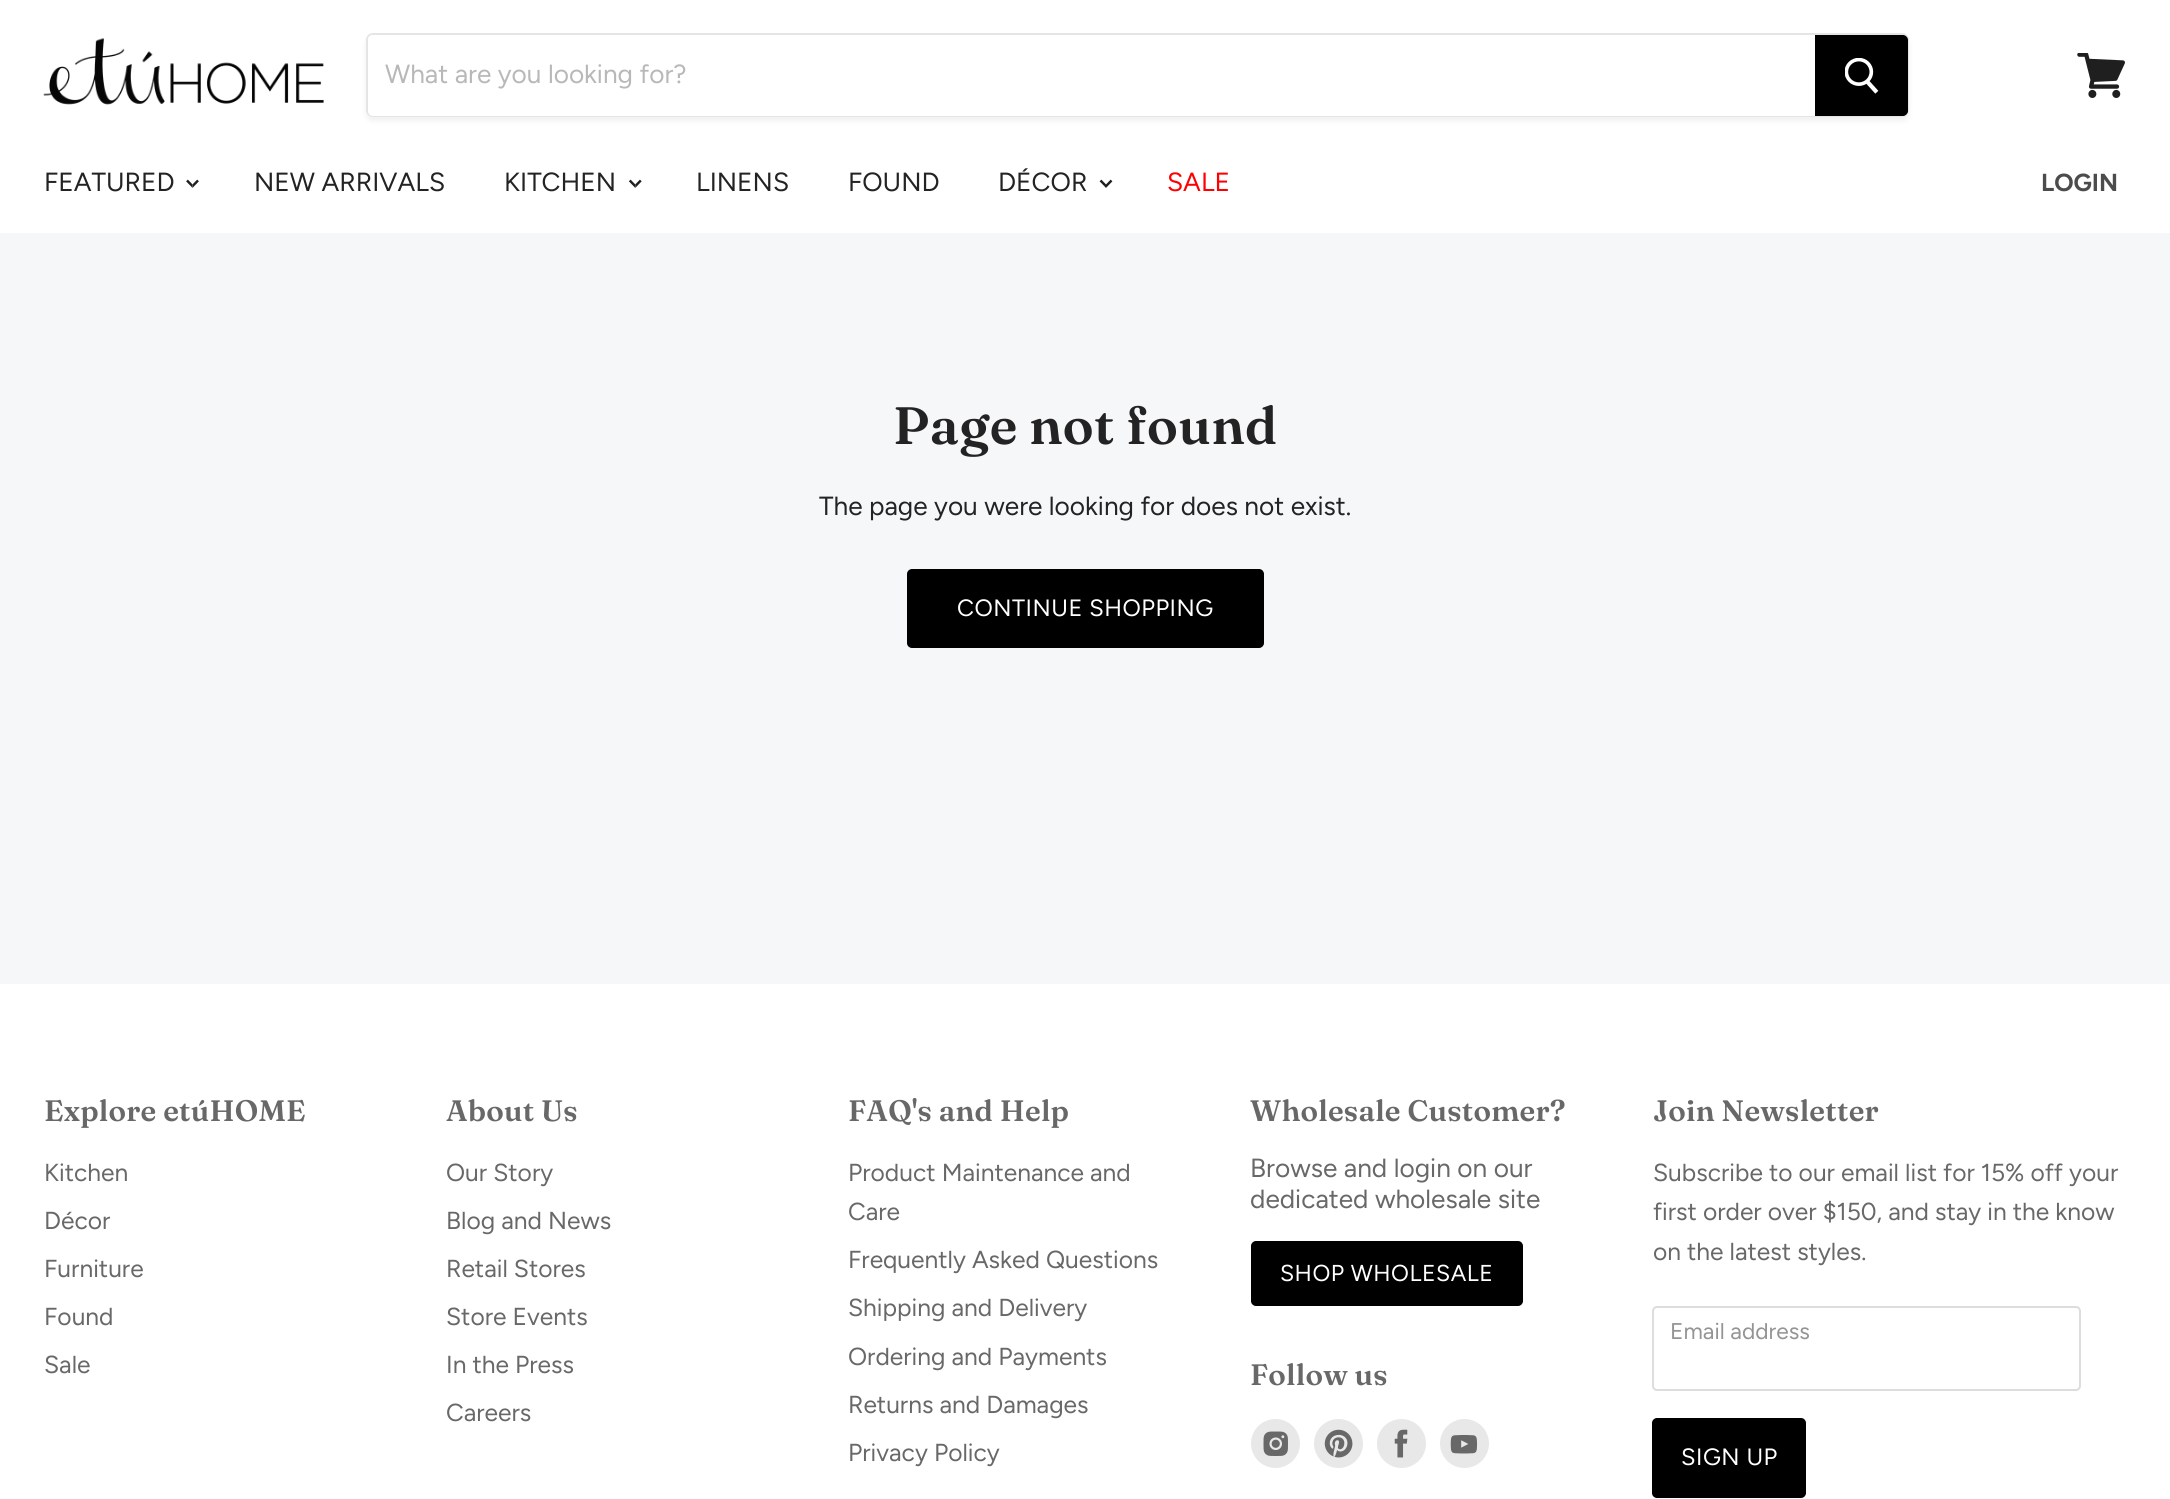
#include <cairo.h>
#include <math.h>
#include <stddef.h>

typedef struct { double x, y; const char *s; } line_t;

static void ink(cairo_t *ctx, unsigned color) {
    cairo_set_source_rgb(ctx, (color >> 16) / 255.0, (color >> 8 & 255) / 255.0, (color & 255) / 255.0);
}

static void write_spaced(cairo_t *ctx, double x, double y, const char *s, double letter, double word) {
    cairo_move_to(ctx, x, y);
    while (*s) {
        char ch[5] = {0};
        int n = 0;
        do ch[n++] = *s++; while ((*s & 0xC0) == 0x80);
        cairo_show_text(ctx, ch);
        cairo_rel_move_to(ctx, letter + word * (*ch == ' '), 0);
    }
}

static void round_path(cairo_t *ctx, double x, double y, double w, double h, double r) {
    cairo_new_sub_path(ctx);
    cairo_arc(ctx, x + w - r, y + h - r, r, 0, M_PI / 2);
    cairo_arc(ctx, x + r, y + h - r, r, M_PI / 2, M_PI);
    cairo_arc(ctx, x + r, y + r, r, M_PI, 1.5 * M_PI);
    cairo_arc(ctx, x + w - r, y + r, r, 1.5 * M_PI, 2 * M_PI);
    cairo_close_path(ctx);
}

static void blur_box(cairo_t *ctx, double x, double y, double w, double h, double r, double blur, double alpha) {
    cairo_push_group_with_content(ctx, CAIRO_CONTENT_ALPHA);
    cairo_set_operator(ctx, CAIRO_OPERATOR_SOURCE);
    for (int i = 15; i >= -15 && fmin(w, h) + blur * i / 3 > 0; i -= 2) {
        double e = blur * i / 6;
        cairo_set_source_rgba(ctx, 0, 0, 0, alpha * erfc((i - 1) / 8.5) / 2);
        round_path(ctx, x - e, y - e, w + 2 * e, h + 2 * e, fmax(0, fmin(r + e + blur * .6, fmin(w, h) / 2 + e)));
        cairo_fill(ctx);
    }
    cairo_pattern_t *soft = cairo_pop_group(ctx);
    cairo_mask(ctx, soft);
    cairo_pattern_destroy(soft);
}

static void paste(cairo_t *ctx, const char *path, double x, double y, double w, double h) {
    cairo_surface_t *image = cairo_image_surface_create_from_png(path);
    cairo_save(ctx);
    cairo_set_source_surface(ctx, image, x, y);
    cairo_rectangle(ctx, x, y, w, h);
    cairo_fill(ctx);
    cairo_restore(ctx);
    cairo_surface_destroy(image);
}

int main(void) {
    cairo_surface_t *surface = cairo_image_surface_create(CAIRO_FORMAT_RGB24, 2170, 1499);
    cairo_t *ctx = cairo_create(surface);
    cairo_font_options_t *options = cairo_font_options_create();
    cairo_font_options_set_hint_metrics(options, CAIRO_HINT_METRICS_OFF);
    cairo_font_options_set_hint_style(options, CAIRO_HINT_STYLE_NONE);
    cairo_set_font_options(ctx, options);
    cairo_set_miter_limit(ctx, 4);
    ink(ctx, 0xF5F7F8);
    cairo_paint(ctx);
    ink(ctx, 0xFFFFFF);
    cairo_rectangle(ctx, 0, 0, 2170, 233);
    cairo_fill(ctx);
    paste(ctx, "media/1.png", 43, 38, 281, 67);
    ink(ctx, 0x7A7B7C);
    blur_box(ctx, 366, 37, 1543, 84, 7, 2.5, 0.11);
    round_path(ctx, 367, 34, 1541, 82, 6);
    ink(ctx, 0xE4E5E5);
    cairo_stroke(ctx);
    ink(ctx, 0xFFFFFF);
    cairo_new_path(ctx);
    cairo_move_to(ctx, 373, 35);
    cairo_line_to(ctx, 1815, 35);
    cairo_line_to(ctx, 1815, 116);
    cairo_line_to(ctx, 373, 116);
    cairo_curve_to(ctx, 370, 116, 368, 114, 368, 111);
    cairo_line_to(ctx, 368, 40);
    cairo_curve_to(ctx, 368, 37, 370, 35, 373, 35);
    cairo_close_path(ctx);
    cairo_fill(ctx);
    cairo_select_font_face(ctx, "Figtree", CAIRO_FONT_SLANT_NORMAL, CAIRO_FONT_WEIGHT_NORMAL);
    cairo_set_font_size(ctx, 26.25);
    ink(ctx, 0xB8B8B8);
    cairo_move_to(ctx, 385, 83);
    cairo_show_text(ctx, "What are you looking for?");
    ink(ctx, 0x000000);
    cairo_new_path(ctx);
    cairo_move_to(ctx, 1816, 36);
    cairo_line_to(ctx, 1903, 36);
    cairo_curve_to(ctx, 1905, 36, 1907, 38, 1907, 40);
    cairo_line_to(ctx, 1907, 111);
    cairo_curve_to(ctx, 1907, 113, 1905, 115, 1903, 115);
    cairo_line_to(ctx, 1816, 115);
    cairo_close_path(ctx);
    cairo_fill_preserve(ctx);
    cairo_stroke(ctx);
    paste(ctx, "media/2.png", 1845, 58, 34, 36);
    paste(ctx, "media/3.png", 2077, 53, 48, 45);
    ink(ctx, 0x232323);
    cairo_move_to(ctx, 44, 191);
    cairo_show_text(ctx, "FEATURED");
    paste(ctx, "media/4.png", 186, 179, 13, 9);
    cairo_move_to(ctx, 254, 191);
    cairo_show_text(ctx, "NEW ARRIVALS");
    cairo_move_to(ctx, 504, 191);
    cairo_show_text(ctx, "KITCHEN");
    paste(ctx, "media/5.png", 628, 179, 14, 9);
    {
        static const line_t items[] = {
            {696, 191, "LINENS"},
            {848, 191, "FOUND"},
            {998, 191, "DÉCOR"},
        };
        for (size_t i = 0; i < sizeof items / sizeof *items; i++) {
            cairo_move_to(ctx, items[i].x, items[i].y);
            cairo_show_text(ctx, items[i].s);
        }
    }
    paste(ctx, "media/6.png", 1099, 179, 14, 9);
    ink(ctx, 0xFF0000);
    cairo_move_to(ctx, 1167, 191);
    cairo_show_text(ctx, "SALE");
    cairo_select_font_face(ctx, "Figtree", CAIRO_FONT_SLANT_NORMAL, CAIRO_FONT_WEIGHT_BOLD);
    cairo_set_font_size(ctx, 24.6);
    ink(ctx, 0x4C4C4C);
    cairo_move_to(ctx, 2041, 191);
    cairo_show_text(ctx, "LOGIN");
    cairo_select_font_face(ctx, "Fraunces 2 SemiBold", CAIRO_FONT_SLANT_NORMAL, CAIRO_FONT_WEIGHT_NORMAL);
    cairo_set_font_size(ctx, 52.5);
    ink(ctx, 0x232323);
    write_spaced(ctx, 893, 444, "Page not found", 0.5, 0);
    cairo_select_font_face(ctx, "Figtree", CAIRO_FONT_SLANT_NORMAL, CAIRO_FONT_WEIGHT_NORMAL);
    cairo_set_font_size(ctx, 26.25);
    cairo_move_to(ctx, 819, 515);
    cairo_show_text(ctx, "The page you were looking for does not exist.");
    ink(ctx, 0x000000);
    round_path(ctx, 908, 570, 355, 77, 4);
    cairo_fill_preserve(ctx);
    cairo_stroke(ctx);
    cairo_set_font_size(ctx, 23.6);
    ink(ctx, 0xFFFFFF);
    write_spaced(ctx, 957, 616, "CONTINUE SHOPPING", 0.5, 0);
    cairo_rectangle(ctx, 0, 984, 2170, 515);
    cairo_fill(ctx);
    cairo_select_font_face(ctx, "Fraunces SemiBold", CAIRO_FONT_SLANT_NORMAL, CAIRO_FONT_WEIGHT_NORMAL);
    cairo_set_font_size(ctx, 29.5);
    ink(ctx, 0x686868);
    write_spaced(ctx, 44, 1121, "Explore etúHOME", 0.25, 0);
    cairo_select_font_face(ctx, "Figtree", CAIRO_FONT_SLANT_NORMAL, CAIRO_FONT_WEIGHT_NORMAL);
    cairo_set_font_size(ctx, 24.6);
    {
        static const line_t items[] = {
            {44, 1181, "Kitchen"},
            {44, 1229, "Décor"},
            {44, 1277, "Furniture"},
            {44, 1325, "Found"},
            {44, 1373, "Sale"},
        };
        for (size_t i = 0; i < sizeof items / sizeof *items; i++) {
            cairo_move_to(ctx, items[i].x, items[i].y);
            cairo_show_text(ctx, items[i].s);
        }
    }
    cairo_select_font_face(ctx, "Fraunces SemiBold", CAIRO_FONT_SLANT_NORMAL, CAIRO_FONT_WEIGHT_NORMAL);
    cairo_set_font_size(ctx, 29.5);
    write_spaced(ctx, 446, 1121, "About Us", 0.25, 0);
    cairo_select_font_face(ctx, "Figtree", CAIRO_FONT_SLANT_NORMAL, CAIRO_FONT_WEIGHT_NORMAL);
    cairo_set_font_size(ctx, 24.6);
    {
        static const line_t items[] = {
            {446, 1181, "Our Story"},
            {446, 1229, "Blog and News"},
            {446, 1277, "Retail Stores"},
            {446, 1325, "Store Events"},
            {446, 1373, "In the Press"},
            {446, 1421, "Careers"},
        };
        for (size_t i = 0; i < sizeof items / sizeof *items; i++) {
            cairo_move_to(ctx, items[i].x, items[i].y);
            cairo_show_text(ctx, items[i].s);
        }
    }
    cairo_select_font_face(ctx, "Fraunces SemiBold", CAIRO_FONT_SLANT_NORMAL, CAIRO_FONT_WEIGHT_NORMAL);
    cairo_set_font_size(ctx, 29.5);
    write_spaced(ctx, 848, 1121, "FAQ's and Help", 0.25, 0);
    cairo_select_font_face(ctx, "Figtree", CAIRO_FONT_SLANT_NORMAL, CAIRO_FONT_WEIGHT_NORMAL);
    cairo_set_font_size(ctx, 24.6);
    {
        static const line_t items[] = {
            {848, 1181, "Product Maintenance and"},
            {848, 1220, "Care"},
            {848, 1268, "Frequently Asked Questions"},
            {848, 1316, "Shipping and Delivery"},
            {848, 1365, "Ordering and Payments"},
            {848, 1413, "Returns and Damages"},
            {848, 1461, "Privacy Policy"},
        };
        for (size_t i = 0; i < sizeof items / sizeof *items; i++) {
            cairo_move_to(ctx, items[i].x, items[i].y);
            cairo_show_text(ctx, items[i].s);
        }
    }
    cairo_select_font_face(ctx, "Fraunces SemiBold", CAIRO_FONT_SLANT_NORMAL, CAIRO_FONT_WEIGHT_NORMAL);
    cairo_set_font_size(ctx, 29.5);
    write_spaced(ctx, 1250, 1121, "Wholesale Customer?", 0.25, 0);
    cairo_select_font_face(ctx, "Figtree", CAIRO_FONT_SLANT_NORMAL, CAIRO_FONT_WEIGHT_NORMAL);
    cairo_set_font_size(ctx, 26.25);
    cairo_move_to(ctx, 1250, 1177);
    cairo_show_text(ctx, "Browse and login on our");
    cairo_move_to(ctx, 1250, 1208);
    cairo_show_text(ctx, "dedicated wholesale site");
    ink(ctx, 0x000000);
    round_path(ctx, 1252, 1242, 270, 63, 4);
    cairo_fill_preserve(ctx);
    cairo_stroke(ctx);
    cairo_set_font_size(ctx, 23);
    ink(ctx, 0xFFFFFF);
    write_spaced(ctx, 1280, 1281, "SHOP WHOLESALE", 0.5, 0);
    cairo_select_font_face(ctx, "Fraunces SemiBold", CAIRO_FONT_SLANT_NORMAL, CAIRO_FONT_WEIGHT_NORMAL);
    cairo_set_font_size(ctx, 29.5);
    ink(ctx, 0x686868);
    write_spaced(ctx, 1250, 1385, "Follow us", 0.25, 0);
    ink(ctx, 0xE8E8E8);
    cairo_new_path(ctx);
    cairo_arc(ctx, 1275.5, 1443.5, 24.5, 0, 2 * M_PI);
    cairo_fill(ctx);
    paste(ctx, "media/7.png", 1263, 1431, 25, 25);
    cairo_arc(ctx, 1338.5, 1443.5, 24.5, 0, 2 * M_PI);
    cairo_fill(ctx);
    paste(ctx, "media/8.png", 1324, 1429, 29, 29);
    cairo_arc(ctx, 1401.5, 1443.5, 24.5, 0, 2 * M_PI);
    cairo_fill(ctx);
    paste(ctx, "media/9.png", 1394, 1429, 14, 29);
    cairo_arc(ctx, 1464.5, 1443.5, 24.5, 0, 2 * M_PI);
    cairo_fill(ctx);
    paste(ctx, "media/10.png", 1450, 1435, 28, 19);
    ink(ctx, 0x686868);
    write_spaced(ctx, 1653, 1121, "Join Newsletter", 0.25, 0);
    cairo_select_font_face(ctx, "Figtree", CAIRO_FONT_SLANT_NORMAL, CAIRO_FONT_WEIGHT_NORMAL);
    cairo_set_font_size(ctx, 24.6);
    {
        static const line_t items[] = {
            {1653, 1181, "Subscribe to our email list for 15% off your"},
            {1653, 1220, "first order over $150, and stay in the know"},
            {1653, 1260, "on the latest styles."},
        };
        for (size_t i = 0; i < sizeof items / sizeof *items; i++) {
            cairo_move_to(ctx, items[i].x, items[i].y);
            cairo_show_text(ctx, items[i].s);
        }
    }
    round_path(ctx, 1653, 1307, 427, 83, 4);
    ink(ctx, 0xDDDDDD);
    cairo_stroke(ctx);
    cairo_set_font_size(ctx, 22.75);
    ink(ctx, 0x949494);
    cairo_move_to(ctx, 1670, 1339);
    cairo_show_text(ctx, "Email address");
    ink(ctx, 0x000000);
    round_path(ctx, 1653, 1419, 152, 78, 4);
    cairo_fill_preserve(ctx);
    cairo_stroke(ctx);
    cairo_set_font_size(ctx, 23.6);
    ink(ctx, 0xFFFFFF);
    write_spaced(ctx, 1681, 1465, "SIGN UP", 0.5, 0);
    cairo_surface_write_to_png(surface, "image.png");
    cairo_font_options_destroy(options);
    cairo_destroy(ctx);
    cairo_surface_destroy(surface);
    return 0;
}
